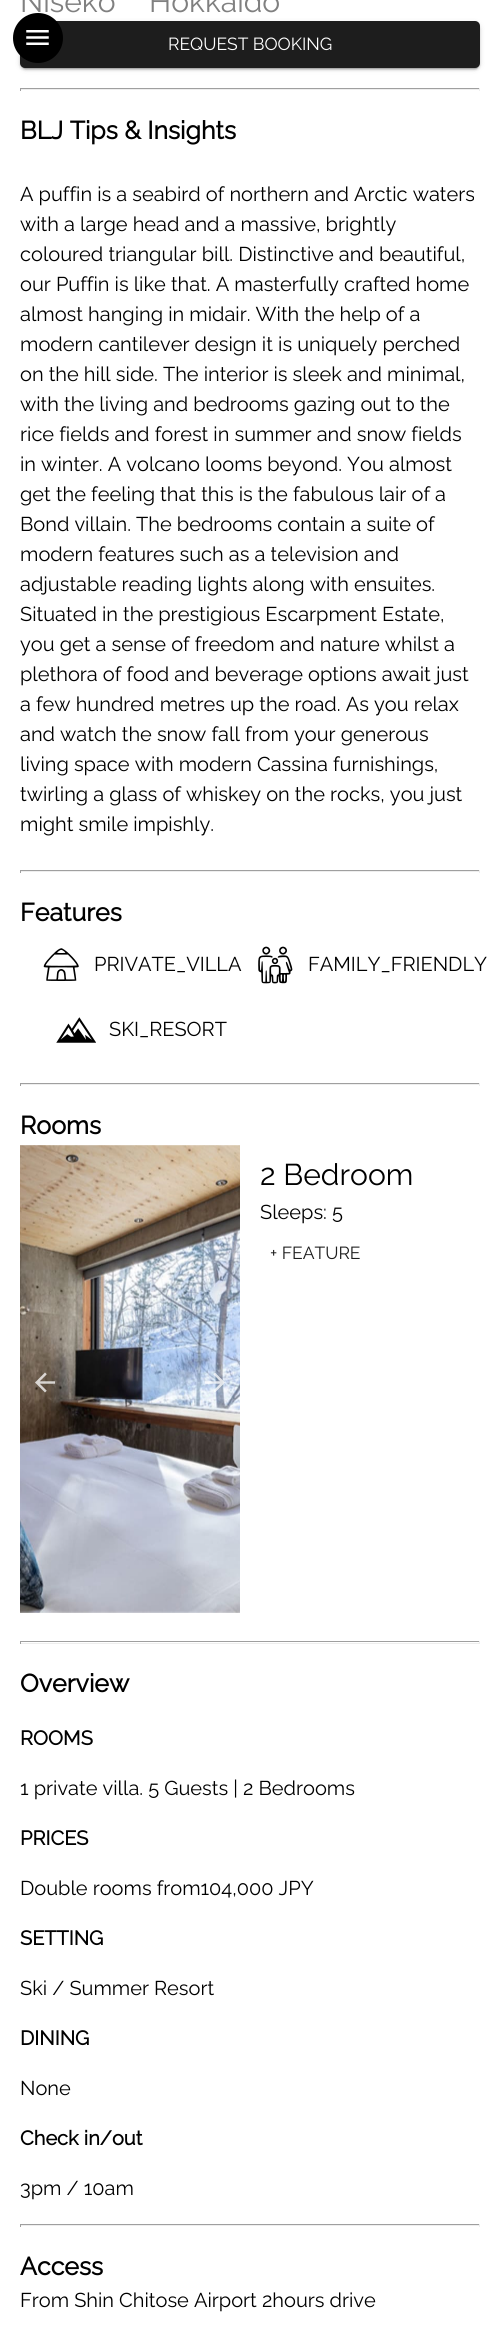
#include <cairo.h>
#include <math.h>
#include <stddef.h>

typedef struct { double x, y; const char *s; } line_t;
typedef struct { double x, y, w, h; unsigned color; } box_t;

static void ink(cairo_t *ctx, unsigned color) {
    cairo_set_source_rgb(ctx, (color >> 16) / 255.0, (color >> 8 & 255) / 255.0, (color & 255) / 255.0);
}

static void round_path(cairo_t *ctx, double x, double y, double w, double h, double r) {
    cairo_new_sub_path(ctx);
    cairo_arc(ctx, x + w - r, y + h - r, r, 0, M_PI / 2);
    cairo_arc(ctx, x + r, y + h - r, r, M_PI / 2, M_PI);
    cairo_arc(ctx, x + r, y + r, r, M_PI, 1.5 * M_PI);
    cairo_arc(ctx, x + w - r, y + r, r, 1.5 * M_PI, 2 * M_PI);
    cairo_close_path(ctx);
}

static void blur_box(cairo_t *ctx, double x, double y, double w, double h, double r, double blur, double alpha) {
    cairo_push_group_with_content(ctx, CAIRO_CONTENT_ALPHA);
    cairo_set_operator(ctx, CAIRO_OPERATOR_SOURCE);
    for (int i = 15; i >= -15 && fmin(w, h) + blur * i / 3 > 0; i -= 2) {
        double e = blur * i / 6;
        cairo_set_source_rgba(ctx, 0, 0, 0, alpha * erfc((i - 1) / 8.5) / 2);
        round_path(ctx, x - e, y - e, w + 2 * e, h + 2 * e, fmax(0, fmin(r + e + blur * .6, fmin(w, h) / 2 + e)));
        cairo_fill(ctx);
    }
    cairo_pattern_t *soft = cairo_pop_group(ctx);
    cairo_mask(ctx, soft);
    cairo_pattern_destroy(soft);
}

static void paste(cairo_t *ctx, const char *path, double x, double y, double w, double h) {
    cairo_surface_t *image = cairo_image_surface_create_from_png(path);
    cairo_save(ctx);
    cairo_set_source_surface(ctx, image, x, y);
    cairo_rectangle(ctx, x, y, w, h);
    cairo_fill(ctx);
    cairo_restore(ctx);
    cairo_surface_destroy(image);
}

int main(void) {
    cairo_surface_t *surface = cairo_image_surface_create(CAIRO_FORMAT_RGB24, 499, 2336);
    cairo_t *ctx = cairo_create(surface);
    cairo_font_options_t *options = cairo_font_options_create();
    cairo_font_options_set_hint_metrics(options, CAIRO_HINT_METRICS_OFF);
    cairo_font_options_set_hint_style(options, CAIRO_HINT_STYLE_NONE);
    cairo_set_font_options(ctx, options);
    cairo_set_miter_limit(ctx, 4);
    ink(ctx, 0xFFFFFF);
    cairo_paint(ctx);
    cairo_select_font_face(ctx, "Raleway Thin", CAIRO_FONT_SLANT_NORMAL, CAIRO_FONT_WEIGHT_NORMAL);
    cairo_set_font_size(ctx, 30);
    ink(ctx, 0x808080);
    cairo_move_to(ctx, 20, 12);
    cairo_show_text(ctx, "Niseko");
    cairo_move_to(ctx, 149, 12);
    cairo_show_text(ctx, "Hokkaido");
    ink(ctx, 0x000000);
    blur_box(ctx, 20, 23, 460, 46, 5, 3, 0.12);
    blur_box(ctx, 20, 24, 460, 46, 5, 1, 0.14);
    blur_box(ctx, 23, 28, 455, 41, 2.5, 0.5, 0.2);
    ink(ctx, 0x1D1D1D);
    round_path(ctx, 20, 21, 460, 47, 5);
    cairo_fill(ctx);
    cairo_set_font_size(ctx, 17.5);
    ink(ctx, 0xFFFFFF);
    cairo_move_to(ctx, 168, 50);
    cairo_show_text(ctx, "REQUEST BOOKING");
    {
        static const box_t items[] = {
            {20, 88, 460, 1, 0x9F9F9F},
            {479, 88, 1, 3, 0xEEEEEE},
            {20, 89, 460, 1, 0xEEEEEE},
            {20, 88, 1, 3, 0x9F9F9F},
        };
        for (size_t i = 0; i < sizeof items / sizeof *items; i++) {
            ink(ctx, items[i].color);
            cairo_rectangle(ctx, items[i].x, items[i].y, items[i].w, items[i].h);
            cairo_fill(ctx);
        }
    }
    cairo_select_font_face(ctx, "Raleway", CAIRO_FONT_SLANT_NORMAL, CAIRO_FONT_WEIGHT_BOLD);
    cairo_set_font_size(ctx, 25);
    ink(ctx, 0x000000);
    cairo_move_to(ctx, 20, 139);
    cairo_show_text(ctx, "BLJ Tips & Insights");
    cairo_select_font_face(ctx, "Raleway Thin", CAIRO_FONT_SLANT_NORMAL, CAIRO_FONT_WEIGHT_NORMAL);
    cairo_set_font_size(ctx, 20);
    {
        static const line_t items[] = {
            {20, 201, "A puffin is a seabird of northern and Arctic waters"},
            {20, 231, "with a large head and a massive, brightly"},
            {20, 261, "coloured triangular bill. Distinctive and beautiful,"},
            {20, 291, "our Puffin is like that. A masterfully crafted home"},
            {20, 321, "almost hanging in midair. With the help of a"},
            {20, 351, "modern cantilever design it is uniquely perched"},
            {20, 381, "on the hill side. The interior is sleek and minimal,"},
            {20, 411, "with the living and bedrooms gazing out to the"},
            {20, 441, "rice fields and forest in summer and snow fields"},
            {20, 471, "in winter. A volcano looms beyond. You almost"},
            {20, 501, "get the feeling that this is the fabulous lair of a"},
            {20, 531, "Bond villain. The bedrooms contain a suite of"},
            {20, 561, "modern features such as a television and"},
            {20, 591, "adjustable reading lights along with ensuites."},
            {20, 621, "Situated in the prestigious Escarpment Estate,"},
            {20, 651, "you get a sense of freedom and nature whilst a"},
            {20, 681, "plethora of food and beverage options await just"},
            {20, 711, "a few hundred metres up the road. As you relax"},
            {20, 741, "and watch the snow fall from your generous"},
            {20, 771, "living space with modern Cassina furnishings,"},
            {20, 801, "twirling a glass of whiskey on the rocks, you just"},
            {20, 831, "might smile impishly."},
        };
        for (size_t i = 0; i < sizeof items / sizeof *items; i++) {
            cairo_move_to(ctx, items[i].x, items[i].y);
            cairo_show_text(ctx, items[i].s);
        }
    }
    {
        static const box_t items[] = {
            {20, 870, 460, 1, 0x9F9F9F},
            {479, 870, 1, 3, 0xEEEEEE},
            {20, 871, 460, 1, 0xEEEEEE},
            {20, 870, 1, 3, 0x9F9F9F},
        };
        for (size_t i = 0; i < sizeof items / sizeof *items; i++) {
            ink(ctx, items[i].color);
            cairo_rectangle(ctx, items[i].x, items[i].y, items[i].w, items[i].h);
            cairo_fill(ctx);
        }
    }
    cairo_select_font_face(ctx, "Raleway", CAIRO_FONT_SLANT_NORMAL, CAIRO_FONT_WEIGHT_BOLD);
    cairo_set_font_size(ctx, 25);
    ink(ctx, 0x000000);
    cairo_move_to(ctx, 20, 921);
    cairo_show_text(ctx, "Features");
    paste(ctx, "media/1.png", 43, 948, 36, 33);
    cairo_select_font_face(ctx, "Raleway Thin", CAIRO_FONT_SLANT_NORMAL, CAIRO_FONT_WEIGHT_NORMAL);
    cairo_set_font_size(ctx, 20);
    cairo_move_to(ctx, 94, 971);
    cairo_show_text(ctx, "PRIVATE_VILLA");
    paste(ctx, "media/2.png", 258, 946, 35, 38);
    cairo_move_to(ctx, 308, 971);
    cairo_show_text(ctx, "FAMILY_FRIENDLY");
    paste(ctx, "media/3.png", 56, 1017, 40, 26);
    cairo_move_to(ctx, 109, 1036);
    cairo_show_text(ctx, "SKI_RESORT");
    {
        static const box_t items[] = {
            {20, 1083, 460, 1, 0x9F9F9F},
            {479, 1083, 1, 3, 0xEEEEEE},
            {20, 1084, 460, 1, 0xEEEEEE},
            {20, 1083, 1, 3, 0x9F9F9F},
        };
        for (size_t i = 0; i < sizeof items / sizeof *items; i++) {
            ink(ctx, items[i].color);
            cairo_rectangle(ctx, items[i].x, items[i].y, items[i].w, items[i].h);
            cairo_fill(ctx);
        }
    }
    cairo_select_font_face(ctx, "Raleway", CAIRO_FONT_SLANT_NORMAL, CAIRO_FONT_WEIGHT_BOLD);
    cairo_set_font_size(ctx, 25);
    ink(ctx, 0x000000);
    cairo_move_to(ctx, 20, 1134);
    cairo_show_text(ctx, "Rooms");
    paste(ctx, "media/4.png", 20, 1145, 220, 468);
    paste(ctx, "media/5.png", 35, 1372, 20, 21);
    paste(ctx, "media/6.png", 205, 1372, 20, 20);
    cairo_select_font_face(ctx, "Raleway Thin", CAIRO_FONT_SLANT_NORMAL, CAIRO_FONT_WEIGHT_NORMAL);
    cairo_set_font_size(ctx, 30);
    cairo_move_to(ctx, 260, 1185);
    cairo_show_text(ctx, "2 Bedroom");
    cairo_set_font_size(ctx, 20);
    cairo_move_to(ctx, 260, 1219);
    cairo_show_text(ctx, "Sleeps: 5");
    cairo_set_font_size(ctx, 17.5);
    ink(ctx, 0x1D1D1D);
    cairo_move_to(ctx, 270, 1259);
    cairo_show_text(ctx, "+ FEATURE");
    {
        static const box_t items[] = {
            {20, 1641, 460, 1, 0x9F9F9F},
            {479, 1641, 1, 3, 0xEEEEEE},
            {20, 1643, 460, 1, 0xEEEEEE},
            {20, 1641, 1, 3, 0x9F9F9F},
        };
        for (size_t i = 0; i < sizeof items / sizeof *items; i++) {
            ink(ctx, items[i].color);
            cairo_rectangle(ctx, items[i].x, items[i].y, items[i].w, items[i].h);
            cairo_fill(ctx);
        }
    }
    cairo_select_font_face(ctx, "Raleway", CAIRO_FONT_SLANT_NORMAL, CAIRO_FONT_WEIGHT_BOLD);
    cairo_set_font_size(ctx, 25);
    ink(ctx, 0x000000);
    cairo_move_to(ctx, 20, 1692);
    cairo_show_text(ctx, "Overview");
    cairo_set_font_size(ctx, 20);
    cairo_move_to(ctx, 20, 1745);
    cairo_show_text(ctx, "ROOMS");
    cairo_select_font_face(ctx, "Raleway Thin", CAIRO_FONT_SLANT_NORMAL, CAIRO_FONT_WEIGHT_NORMAL);
    cairo_move_to(ctx, 20, 1795);
    cairo_show_text(ctx, "1 private villa. 5 Guests | 2 Bedrooms");
    cairo_select_font_face(ctx, "Raleway", CAIRO_FONT_SLANT_NORMAL, CAIRO_FONT_WEIGHT_BOLD);
    cairo_move_to(ctx, 20, 1845);
    cairo_show_text(ctx, "PRICES");
    cairo_select_font_face(ctx, "Raleway Thin", CAIRO_FONT_SLANT_NORMAL, CAIRO_FONT_WEIGHT_NORMAL);
    cairo_move_to(ctx, 20, 1895);
    cairo_show_text(ctx, "Double rooms from104,000 JPY");
    cairo_select_font_face(ctx, "Raleway", CAIRO_FONT_SLANT_NORMAL, CAIRO_FONT_WEIGHT_BOLD);
    cairo_move_to(ctx, 20, 1945);
    cairo_show_text(ctx, "SETTING");
    cairo_select_font_face(ctx, "Raleway Thin", CAIRO_FONT_SLANT_NORMAL, CAIRO_FONT_WEIGHT_NORMAL);
    cairo_move_to(ctx, 20, 1995);
    cairo_show_text(ctx, "Ski / Summer Resort");
    cairo_select_font_face(ctx, "Raleway", CAIRO_FONT_SLANT_NORMAL, CAIRO_FONT_WEIGHT_BOLD);
    cairo_move_to(ctx, 20, 2045);
    cairo_show_text(ctx, "DINING");
    cairo_select_font_face(ctx, "Raleway Thin", CAIRO_FONT_SLANT_NORMAL, CAIRO_FONT_WEIGHT_NORMAL);
    cairo_move_to(ctx, 20, 2095);
    cairo_show_text(ctx, "None");
    cairo_select_font_face(ctx, "Raleway", CAIRO_FONT_SLANT_NORMAL, CAIRO_FONT_WEIGHT_BOLD);
    cairo_move_to(ctx, 20, 2145);
    cairo_show_text(ctx, "Check in/out");
    cairo_select_font_face(ctx, "Raleway Thin", CAIRO_FONT_SLANT_NORMAL, CAIRO_FONT_WEIGHT_NORMAL);
    cairo_move_to(ctx, 20, 2195);
    cairo_show_text(ctx, "3pm / 10am");
    {
        static const box_t items[] = {
            {20, 2224, 460, 1, 0x9F9F9F},
            {479, 2224, 1, 3, 0xEEEEEE},
            {20, 2225, 460, 1, 0xEEEEEE},
            {20, 2224, 1, 3, 0x9F9F9F},
        };
        for (size_t i = 0; i < sizeof items / sizeof *items; i++) {
            ink(ctx, items[i].color);
            cairo_rectangle(ctx, items[i].x, items[i].y, items[i].w, items[i].h);
            cairo_fill(ctx);
        }
    }
    cairo_select_font_face(ctx, "Raleway", CAIRO_FONT_SLANT_NORMAL, CAIRO_FONT_WEIGHT_BOLD);
    cairo_set_font_size(ctx, 25);
    ink(ctx, 0x000000);
    cairo_move_to(ctx, 20, 2275);
    cairo_show_text(ctx, "Access");
    cairo_select_font_face(ctx, "Raleway Thin", CAIRO_FONT_SLANT_NORMAL, CAIRO_FONT_WEIGHT_NORMAL);
    cairo_set_font_size(ctx, 20);
    cairo_move_to(ctx, 20, 2307);
    cairo_show_text(ctx, "From Shin Chitose Airport 2hours drive");
    cairo_new_path(ctx);
    cairo_arc(ctx, 38, 38, 25, 0, 2 * M_PI);
    cairo_fill(ctx);
    paste(ctx, "media/7.png", 26, 30, 23, 15);
    cairo_surface_write_to_png(surface, "image.png");
    cairo_font_options_destroy(options);
    cairo_destroy(ctx);
    cairo_surface_destroy(surface);
    return 0;
}
